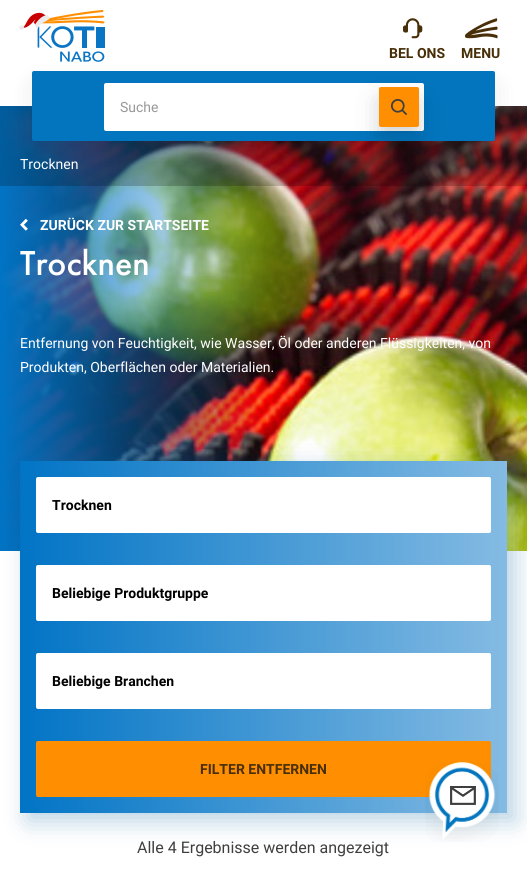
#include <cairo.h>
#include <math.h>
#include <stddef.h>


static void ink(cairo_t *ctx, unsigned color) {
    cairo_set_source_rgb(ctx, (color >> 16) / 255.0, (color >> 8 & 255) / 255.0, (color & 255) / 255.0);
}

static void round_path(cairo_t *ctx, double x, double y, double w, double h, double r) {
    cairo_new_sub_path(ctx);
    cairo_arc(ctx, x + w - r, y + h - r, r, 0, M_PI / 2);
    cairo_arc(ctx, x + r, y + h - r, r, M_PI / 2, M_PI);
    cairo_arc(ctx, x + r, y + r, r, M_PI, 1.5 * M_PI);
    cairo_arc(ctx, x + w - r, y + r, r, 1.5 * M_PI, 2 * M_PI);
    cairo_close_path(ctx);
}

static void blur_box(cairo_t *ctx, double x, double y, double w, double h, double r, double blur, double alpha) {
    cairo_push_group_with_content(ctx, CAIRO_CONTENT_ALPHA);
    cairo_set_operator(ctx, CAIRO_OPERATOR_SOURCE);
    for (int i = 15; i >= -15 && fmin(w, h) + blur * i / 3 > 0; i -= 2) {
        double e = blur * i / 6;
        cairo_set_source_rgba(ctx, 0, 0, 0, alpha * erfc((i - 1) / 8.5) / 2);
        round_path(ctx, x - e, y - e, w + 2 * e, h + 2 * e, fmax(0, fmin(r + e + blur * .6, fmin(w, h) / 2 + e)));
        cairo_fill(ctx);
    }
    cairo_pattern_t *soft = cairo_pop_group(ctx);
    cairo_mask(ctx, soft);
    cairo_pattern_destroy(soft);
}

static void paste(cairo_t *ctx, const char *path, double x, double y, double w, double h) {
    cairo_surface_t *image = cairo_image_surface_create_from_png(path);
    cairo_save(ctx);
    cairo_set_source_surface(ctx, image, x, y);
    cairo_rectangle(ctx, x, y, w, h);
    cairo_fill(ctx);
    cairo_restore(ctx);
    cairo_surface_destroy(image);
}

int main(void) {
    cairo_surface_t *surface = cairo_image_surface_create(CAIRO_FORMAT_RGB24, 527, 880);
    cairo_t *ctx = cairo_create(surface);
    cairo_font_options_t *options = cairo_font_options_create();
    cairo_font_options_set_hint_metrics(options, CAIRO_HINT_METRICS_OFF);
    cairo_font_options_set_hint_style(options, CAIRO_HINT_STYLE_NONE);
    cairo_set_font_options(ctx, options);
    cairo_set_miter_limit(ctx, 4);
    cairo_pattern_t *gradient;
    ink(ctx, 0xFFFFFF);
    cairo_paint(ctx);
    paste(ctx, "media/5.png", 0, 106, 527, 445);
    cairo_set_source_rgba(ctx, 0, 0, 0, 0.2);
    cairo_rectangle(ctx, 0, 106, 527, 80);
    cairo_fill(ctx);
    ink(ctx, 0x000000);
    blur_box(ctx, 32, 83, 463, 70, 2, 12, 0.08);
    paste(ctx, "media/1.png", 19, 10, 86, 52);
    paste(ctx, "media/2.png", 403, 18, 20, 21);
    cairo_select_font_face(ctx, "Roboto", CAIRO_FONT_SLANT_NORMAL, CAIRO_FONT_WEIGHT_BOLD);
    cairo_set_font_size(ctx, 14);
    ink(ctx, 0x482F08);
    cairo_move_to(ctx, 389, 58);
    cairo_show_text(ctx, "BEL ONS");
    paste(ctx, "media/3.png", 465, 18, 33, 21);
    cairo_move_to(ctx, 461, 58);
    cairo_show_text(ctx, "MENU");
    ink(ctx, 0x0275BE);
    round_path(ctx, 32, 71, 463, 70, 2);
    cairo_fill(ctx);
    ink(ctx, 0xFFFFFF);
    round_path(ctx, 104, 83, 320, 48, 2);
    cairo_fill(ctx);
    cairo_select_font_face(ctx, "Roboto", CAIRO_FONT_SLANT_NORMAL, CAIRO_FONT_WEIGHT_NORMAL);
    ink(ctx, 0x989898);
    cairo_move_to(ctx, 120, 112);
    cairo_show_text(ctx, "Suche");
    ink(ctx, 0x000000);
    blur_box(ctx, 379, 99, 40, 40, 2, 12, 0.17);
    ink(ctx, 0xFF8F00);
    round_path(ctx, 379, 87, 40, 40, 2);
    cairo_fill(ctx);
    paste(ctx, "media/4.png", 391, 99, 16, 16);
    ink(ctx, 0xFFFFFF);
    cairo_move_to(ctx, 20, 169);
    cairo_show_text(ctx, "Trocknen");
    paste(ctx, "media/6.png", 20, 218, 8, 13);
    cairo_select_font_face(ctx, "Roboto", CAIRO_FONT_SLANT_NORMAL, CAIRO_FONT_WEIGHT_BOLD);
    cairo_move_to(ctx, 40, 230);
    cairo_show_text(ctx, "ZURÜCK ZUR STARTSEITE");
    cairo_select_font_face(ctx, "Futura PT Medium", CAIRO_FONT_SLANT_NORMAL, CAIRO_FONT_WEIGHT_NORMAL);
    cairo_set_font_size(ctx, 36);
    cairo_move_to(ctx, 20, 275);
    cairo_show_text(ctx, "Trocknen");
    cairo_select_font_face(ctx, "Roboto", CAIRO_FONT_SLANT_NORMAL, CAIRO_FONT_WEIGHT_NORMAL);
    cairo_set_font_size(ctx, 14);
    cairo_move_to(ctx, 20, 348);
    cairo_show_text(ctx, "Entfernung von Feuchtigkeit, wie Wasser, Öl oder anderen Flüssigkeiten, von");
    cairo_move_to(ctx, 20, 372);
    cairo_show_text(ctx, "Produkten, Oberflächen oder Materialien.");
    ink(ctx, 0x00609D);
    blur_box(ctx, 28, 469, 487, 352, 0, 12, 0.28);
    gradient = cairo_pattern_create_linear(20, 637, 507, 637);
    cairo_pattern_add_color_stop_rgba(gradient, 0, 0.004, 0.455, 0.773, 1);
    cairo_pattern_add_color_stop_rgba(gradient, 1, 0.518, 0.733, 0.89, 1);
    cairo_set_source(ctx, gradient);
    cairo_pattern_destroy(gradient);
    cairo_rectangle(ctx, 20, 461, 487, 352);
    cairo_fill(ctx);
    ink(ctx, 0xFFFFFF);
    round_path(ctx, 36, 477, 455, 56, 2);
    cairo_fill(ctx);
    cairo_select_font_face(ctx, "Roboto", CAIRO_FONT_SLANT_NORMAL, CAIRO_FONT_WEIGHT_BOLD);
    ink(ctx, 0x000000);
    cairo_move_to(ctx, 52, 510);
    cairo_show_text(ctx, "Trocknen");
    ink(ctx, 0xFFFFFF);
    round_path(ctx, 36, 565, 455, 56, 2);
    cairo_fill(ctx);
    ink(ctx, 0x000000);
    cairo_move_to(ctx, 52, 598);
    cairo_show_text(ctx, "Beliebige Produktgruppe");
    ink(ctx, 0xFFFFFF);
    round_path(ctx, 36, 653, 455, 56, 2);
    cairo_fill(ctx);
    ink(ctx, 0x000000);
    cairo_move_to(ctx, 52, 686);
    cairo_show_text(ctx, "Beliebige Branchen");
    ink(ctx, 0xFF8F00);
    round_path(ctx, 36, 741, 455, 56, 2);
    cairo_fill(ctx);
    ink(ctx, 0x482F08);
    cairo_move_to(ctx, 200, 774);
    cairo_show_text(ctx, "FILTER ENTFERNEN");
    cairo_select_font_face(ctx, "Roboto", CAIRO_FONT_SLANT_NORMAL, CAIRO_FONT_WEIGHT_NORMAL);
    cairo_set_font_size(ctx, 16);
    ink(ctx, 0x3F3F3F);
    cairo_move_to(ctx, 137, 853);
    cairo_show_text(ctx, "Alle 4 Ergebnisse werden angezeigt");
    paste(ctx, "media/7.png", 425, 762, 74, 80);
    paste(ctx, "media/8.png", 450, 786, 26, 19);
    cairo_surface_write_to_png(surface, "image.png");
    cairo_font_options_destroy(options);
    cairo_destroy(ctx);
    cairo_surface_destroy(surface);
    return 0;
}
